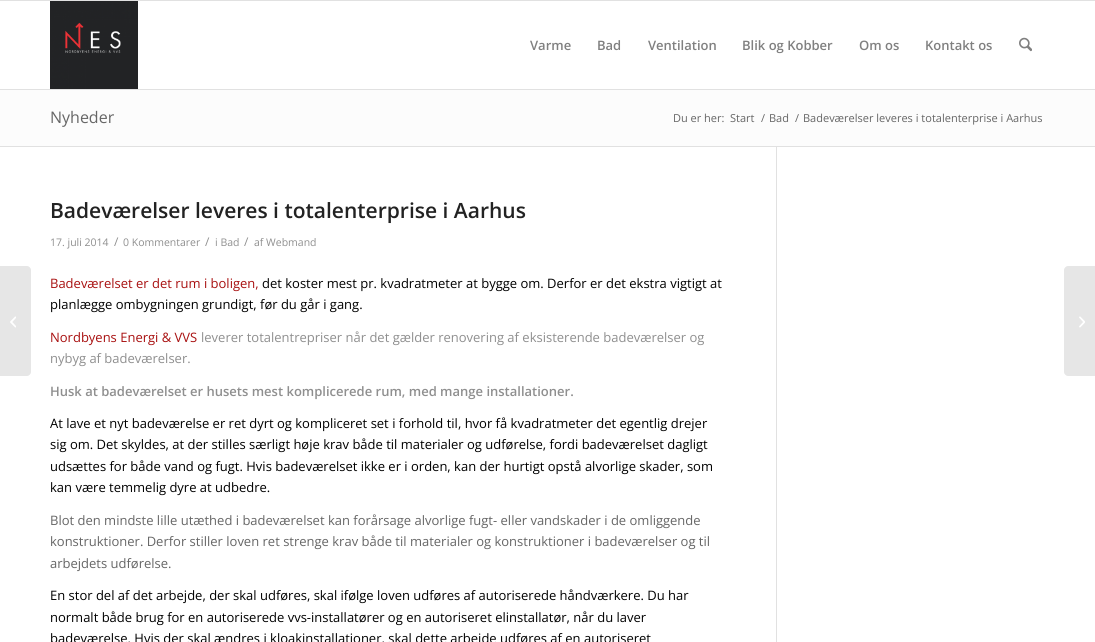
#include <cairo.h>
#include <math.h>
#include <stddef.h>

typedef struct { double x, y; const char *s; } line_t;

static void ink(cairo_t *ctx, unsigned color) {
    cairo_set_source_rgb(ctx, (color >> 16) / 255.0, (color >> 8 & 255) / 255.0, (color & 255) / 255.0);
}

static void paste(cairo_t *ctx, const char *path, double x, double y, double w, double h) {
    cairo_surface_t *image = cairo_image_surface_create_from_png(path);
    cairo_save(ctx);
    cairo_set_source_surface(ctx, image, x, y);
    cairo_rectangle(ctx, x, y, w, h);
    cairo_fill(ctx);
    cairo_restore(ctx);
    cairo_surface_destroy(image);
}

int main(void) {
    cairo_surface_t *surface = cairo_image_surface_create(CAIRO_FORMAT_RGB24, 1095, 642);
    cairo_t *ctx = cairo_create(surface);
    cairo_font_options_t *options = cairo_font_options_create();
    cairo_font_options_set_hint_metrics(options, CAIRO_HINT_METRICS_OFF);
    cairo_font_options_set_hint_style(options, CAIRO_HINT_STYLE_NONE);
    cairo_set_font_options(ctx, options);
    cairo_set_miter_limit(ctx, 4);
    ink(ctx, 0xFFFFFF);
    cairo_paint(ctx);
    ink(ctx, 0xE1E1E1);
    cairo_rectangle(ctx, 0, 0, 1095, 1);
    cairo_fill(ctx);
    cairo_rectangle(ctx, 0, 89, 1095, 1);
    cairo_fill(ctx);
    paste(ctx, "media/1.png", 50, 1, 88, 88);
    cairo_select_font_face(ctx, "Open Sans SemiBold", CAIRO_FONT_SLANT_NORMAL, CAIRO_FONT_WEIGHT_NORMAL);
    cairo_set_font_size(ctx, 13);
    ink(ctx, 0x808080);
    {
        static const line_t items[] = {
            {530, 50, "Varme"},
            {597, 50, "Bad"},
            {648, 50, "Ventilation"},
            {742, 50, "Blik og Kobber"},
            {859, 50, "Om os"},
            {925, 50, "Kontakt os"},
        };
        for (size_t i = 0; i < sizeof items / sizeof *items; i++) {
            cairo_move_to(ctx, items[i].x, items[i].y);
            cairo_show_text(ctx, items[i].s);
        }
    }
    paste(ctx, "media/2.png", 1019, 37, 13, 15);
    ink(ctx, 0xE6E6E6);
    cairo_new_path(ctx);
    cairo_move_to(ctx, 0, 266);
    cairo_line_to(ctx, 27, 266);
    cairo_curve_to(ctx, 29, 266, 31, 268, 31, 270);
    cairo_line_to(ctx, 31, 372);
    cairo_curve_to(ctx, 31, 374, 29, 376, 27, 376);
    cairo_line_to(ctx, 0, 376);
    cairo_close_path(ctx);
    cairo_fill(ctx);
    paste(ctx, "media/3.png", 10, 316, 6, 12);
    ink(ctx, 0xFCFCFC);
    cairo_rectangle(ctx, 0, 90, 1095, 56);
    cairo_fill(ctx);
    cairo_select_font_face(ctx, "Open Sans", CAIRO_FONT_SLANT_NORMAL, CAIRO_FONT_WEIGHT_NORMAL);
    cairo_set_font_size(ctx, 16);
    ink(ctx, 0x666666);
    cairo_move_to(ctx, 50, 123);
    cairo_show_text(ctx, "Nyheder");
    cairo_set_font_size(ctx, 11);
    {
        static const line_t items[] = {
            {673, 122, "Du er her:"},
            {730, 122, "Start"},
            {761, 122, "/"},
            {769, 122, "Bad"},
            {795, 122, "/"},
            {803, 122, "Badeværelser leveres i totalenterprise i Aarhus"},
        };
        for (size_t i = 0; i < sizeof items / sizeof *items; i++) {
            cairo_move_to(ctx, items[i].x, items[i].y);
            cairo_show_text(ctx, items[i].s);
        }
    }
    ink(ctx, 0xE1E1E1);
    cairo_rectangle(ctx, 0, 146, 1095, 1);
    cairo_fill(ctx);
    cairo_rectangle(ctx, 776, 147, 1, 495);
    cairo_fill(ctx);
    cairo_select_font_face(ctx, "Open Sans SemiBold", CAIRO_FONT_SLANT_NORMAL, CAIRO_FONT_WEIGHT_NORMAL);
    cairo_set_font_size(ctx, 21);
    ink(ctx, 0x222222);
    cairo_move_to(ctx, 50, 218);
    cairo_show_text(ctx, "Badeværelser leveres i totalenterprise i Aarhus");
    cairo_select_font_face(ctx, "Open Sans", CAIRO_FONT_SLANT_NORMAL, CAIRO_FONT_WEIGHT_NORMAL);
    cairo_set_font_size(ctx, 10.5);
    ink(ctx, 0x8F8F8F);
    cairo_move_to(ctx, 50, 246);
    cairo_show_text(ctx, "17. juli 2014");
    cairo_set_font_size(ctx, 12);
    cairo_move_to(ctx, 114, 246);
    cairo_show_text(ctx, "/");
    cairo_set_font_size(ctx, 10.5);
    cairo_move_to(ctx, 123, 246);
    cairo_show_text(ctx, "0 Kommentarer");
    cairo_set_font_size(ctx, 12);
    cairo_move_to(ctx, 205, 246);
    cairo_show_text(ctx, "/");
    cairo_set_font_size(ctx, 10.5);
    cairo_move_to(ctx, 215, 246);
    cairo_show_text(ctx, "i Bad");
    cairo_set_font_size(ctx, 12);
    cairo_move_to(ctx, 244, 246);
    cairo_show_text(ctx, "/");
    cairo_set_font_size(ctx, 10.5);
    cairo_move_to(ctx, 254, 246);
    cairo_show_text(ctx, "af Webmand");
    cairo_set_font_size(ctx, 13);
    ink(ctx, 0xA81010);
    cairo_move_to(ctx, 50, 288);
    cairo_show_text(ctx, "Badeværelset er det rum i boligen,");
    ink(ctx, 0x000000);
    cairo_move_to(ctx, 262, 288);
    cairo_show_text(ctx, "det koster mest pr. kvadratmeter at bygge om. Derfor er det ekstra vigtigt at");
    cairo_move_to(ctx, 50, 309);
    cairo_show_text(ctx, "planlægge ombygningen grundigt, før du går i gang.");
    ink(ctx, 0xA81010);
    cairo_move_to(ctx, 50, 342);
    cairo_show_text(ctx, "Nordbyens Energi & VVS");
    ink(ctx, 0x8F8F8F);
    cairo_move_to(ctx, 201, 342);
    cairo_show_text(ctx, "leverer totalentrepriser når det gælder renovering af eksisterende badeværelser og");
    cairo_move_to(ctx, 50, 363);
    cairo_show_text(ctx, "nybyg af badeværelser.");
    cairo_select_font_face(ctx, "Open Sans SemiBold", CAIRO_FONT_SLANT_NORMAL, CAIRO_FONT_WEIGHT_NORMAL);
    cairo_move_to(ctx, 50, 396);
    cairo_show_text(ctx, "Husk at badeværelset er husets mest komplicerede rum, med mange installationer.");
    cairo_select_font_face(ctx, "Open Sans", CAIRO_FONT_SLANT_NORMAL, CAIRO_FONT_WEIGHT_NORMAL);
    ink(ctx, 0x000000);
    {
        static const line_t items[] = {
            {50, 428, "At lave et nyt badeværelse er ret dyrt og kompliceret set i forhold til, hvor få kvadratmeter det egentlig drejer"},
            {50, 449, "sig om. Det skyldes, at der stilles særligt høje krav både til materialer og udførelse, fordi badeværelset dagligt"},
            {50, 471, "udsættes for både vand og fugt. Hvis badeværelset ikke er i orden, kan der hurtigt opstå alvorlige skader, som"},
            {50, 492, "kan være temmelig dyre at udbedre."},
        };
        for (size_t i = 0; i < sizeof items / sizeof *items; i++) {
            cairo_move_to(ctx, items[i].x, items[i].y);
            cairo_show_text(ctx, items[i].s);
        }
    }
    ink(ctx, 0x666666);
    {
        static const line_t items[] = {
            {50, 525, "Blot den mindste lille utæthed i badeværelset kan forårsage alvorlige fugt- eller vandskader i de omliggende"},
            {50, 546, "konstruktioner. Derfor stiller loven ret strenge krav både til materialer og konstruktioner i badeværelser og til"},
            {50, 568, "arbejdets udførelse."},
        };
        for (size_t i = 0; i < sizeof items / sizeof *items; i++) {
            cairo_move_to(ctx, items[i].x, items[i].y);
            cairo_show_text(ctx, items[i].s);
        }
    }
    ink(ctx, 0x000000);
    {
        static const line_t items[] = {
            {50, 600, "En stor del af det arbejde, der skal udføres, skal ifølge loven udføres af autoriserede håndværkere. Du har"},
            {50, 622, "normalt både brug for en autoriserede vvs-installatører og en autoriseret elinstallatør, når du laver"},
            {50, 643, "badeværelse. Hvis der skal ændres i kloakinstallationer, skal dette arbejde udføres af en autoriseret"},
        };
        for (size_t i = 0; i < sizeof items / sizeof *items; i++) {
            cairo_move_to(ctx, items[i].x, items[i].y);
            cairo_show_text(ctx, items[i].s);
        }
    }
    ink(ctx, 0xE6E6E6);
    cairo_new_path(ctx);
    cairo_move_to(ctx, 1068, 266);
    cairo_line_to(ctx, 1095, 266);
    cairo_line_to(ctx, 1095, 376);
    cairo_line_to(ctx, 1068, 376);
    cairo_curve_to(ctx, 1066, 376, 1064, 374, 1064, 372);
    cairo_line_to(ctx, 1064, 270);
    cairo_curve_to(ctx, 1064, 268, 1066, 266, 1068, 266);
    cairo_close_path(ctx);
    cairo_fill(ctx);
    paste(ctx, "media/4.png", 1079, 316, 6, 12);
    cairo_surface_write_to_png(surface, "image.png");
    cairo_font_options_destroy(options);
    cairo_destroy(ctx);
    cairo_surface_destroy(surface);
    return 0;
}
